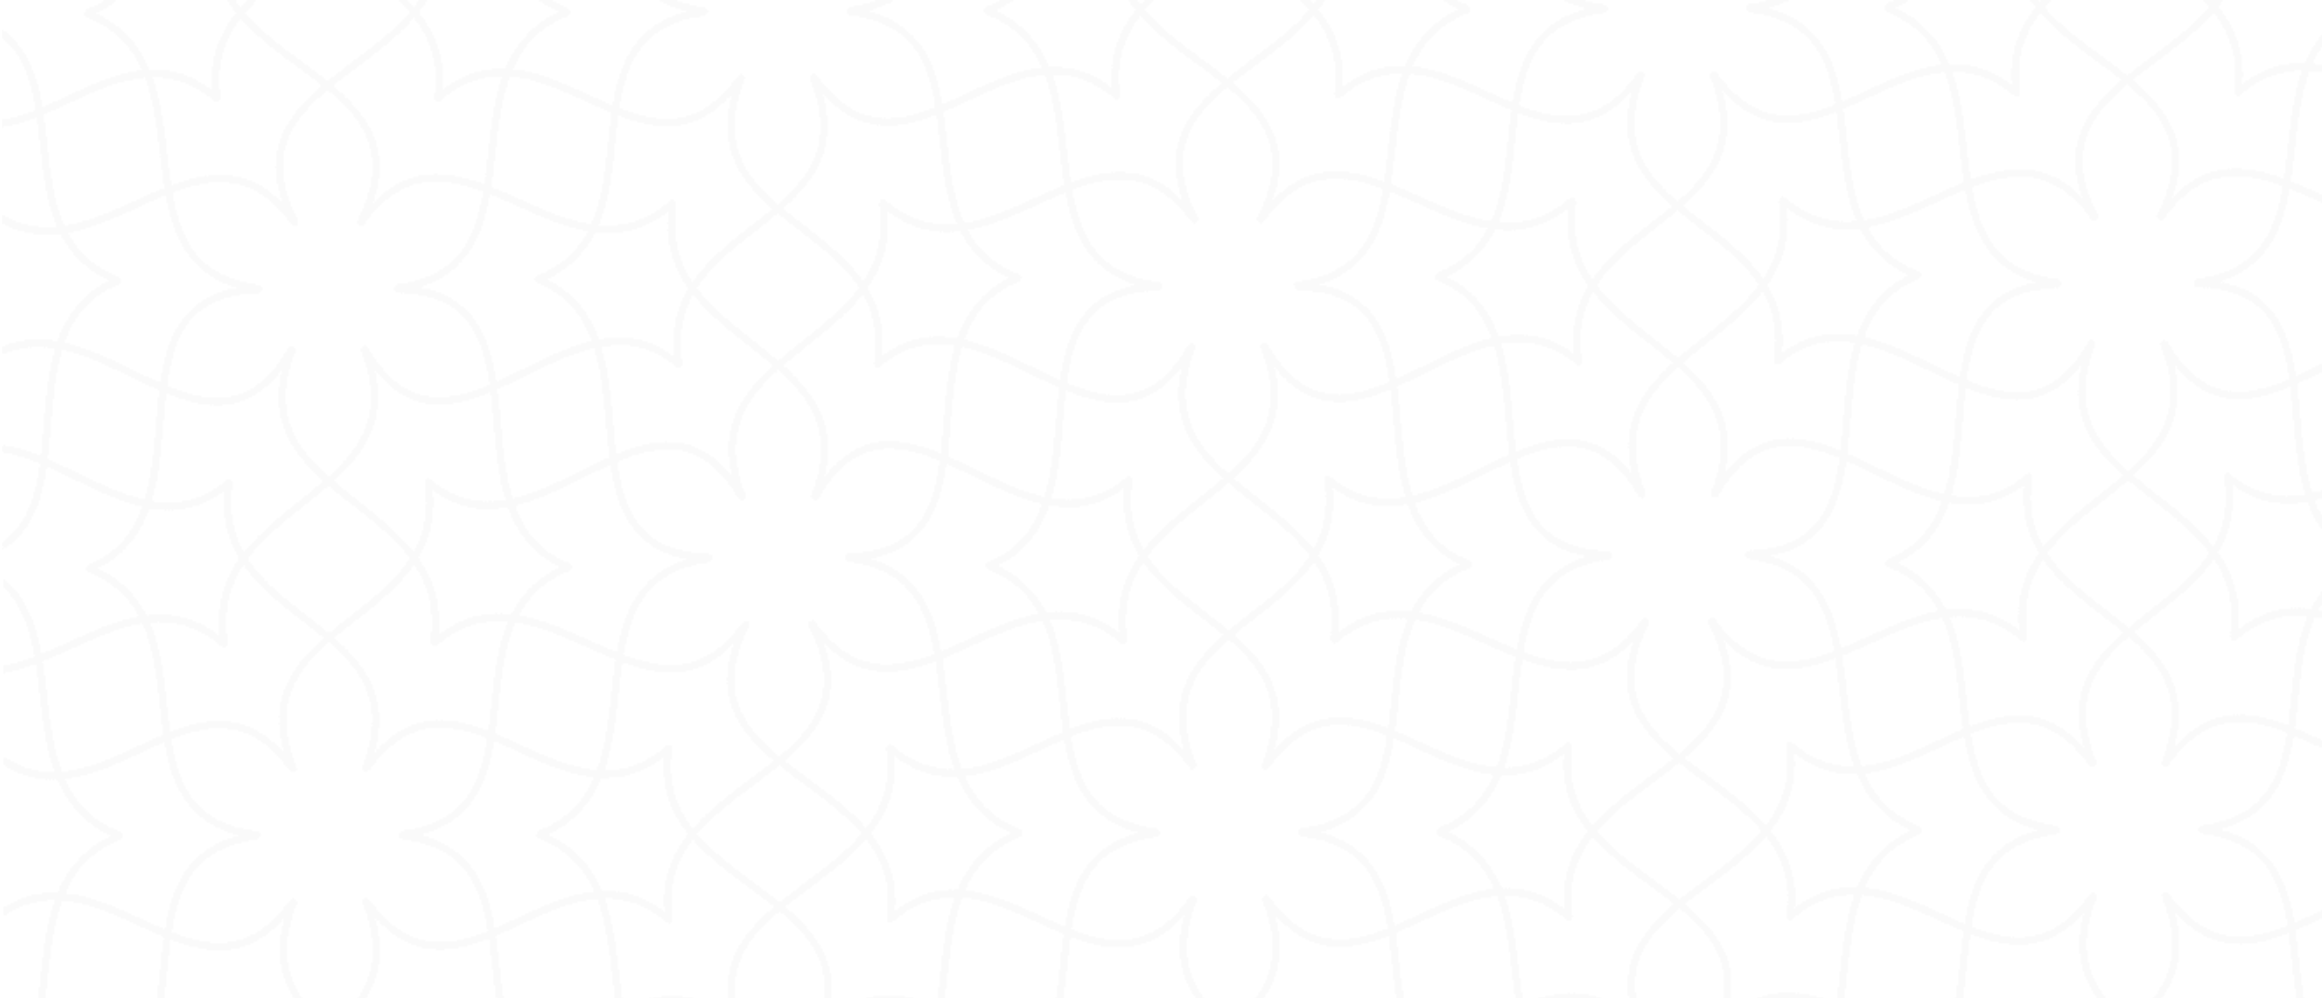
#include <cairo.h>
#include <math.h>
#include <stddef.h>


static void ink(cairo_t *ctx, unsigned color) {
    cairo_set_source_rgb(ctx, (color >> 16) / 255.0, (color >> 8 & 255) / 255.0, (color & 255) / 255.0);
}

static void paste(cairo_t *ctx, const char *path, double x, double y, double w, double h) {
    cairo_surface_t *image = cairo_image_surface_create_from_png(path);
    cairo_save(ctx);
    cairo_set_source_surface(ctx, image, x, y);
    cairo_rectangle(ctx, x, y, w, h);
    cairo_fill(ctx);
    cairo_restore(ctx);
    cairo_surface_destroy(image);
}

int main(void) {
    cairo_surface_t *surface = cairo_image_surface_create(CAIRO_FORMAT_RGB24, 2322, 998);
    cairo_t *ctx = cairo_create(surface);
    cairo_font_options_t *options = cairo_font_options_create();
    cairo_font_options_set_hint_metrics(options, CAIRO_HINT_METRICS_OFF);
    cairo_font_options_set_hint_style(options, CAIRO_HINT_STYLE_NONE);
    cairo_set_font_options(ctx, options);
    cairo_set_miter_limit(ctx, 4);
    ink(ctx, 0xFFFFFF);
    cairo_paint(ctx);
    paste(ctx, "media/1.png", 2, 0, 2320, 998);
    cairo_surface_write_to_png(surface, "image.png");
    cairo_font_options_destroy(options);
    cairo_destroy(ctx);
    cairo_surface_destroy(surface);
    return 0;
}
